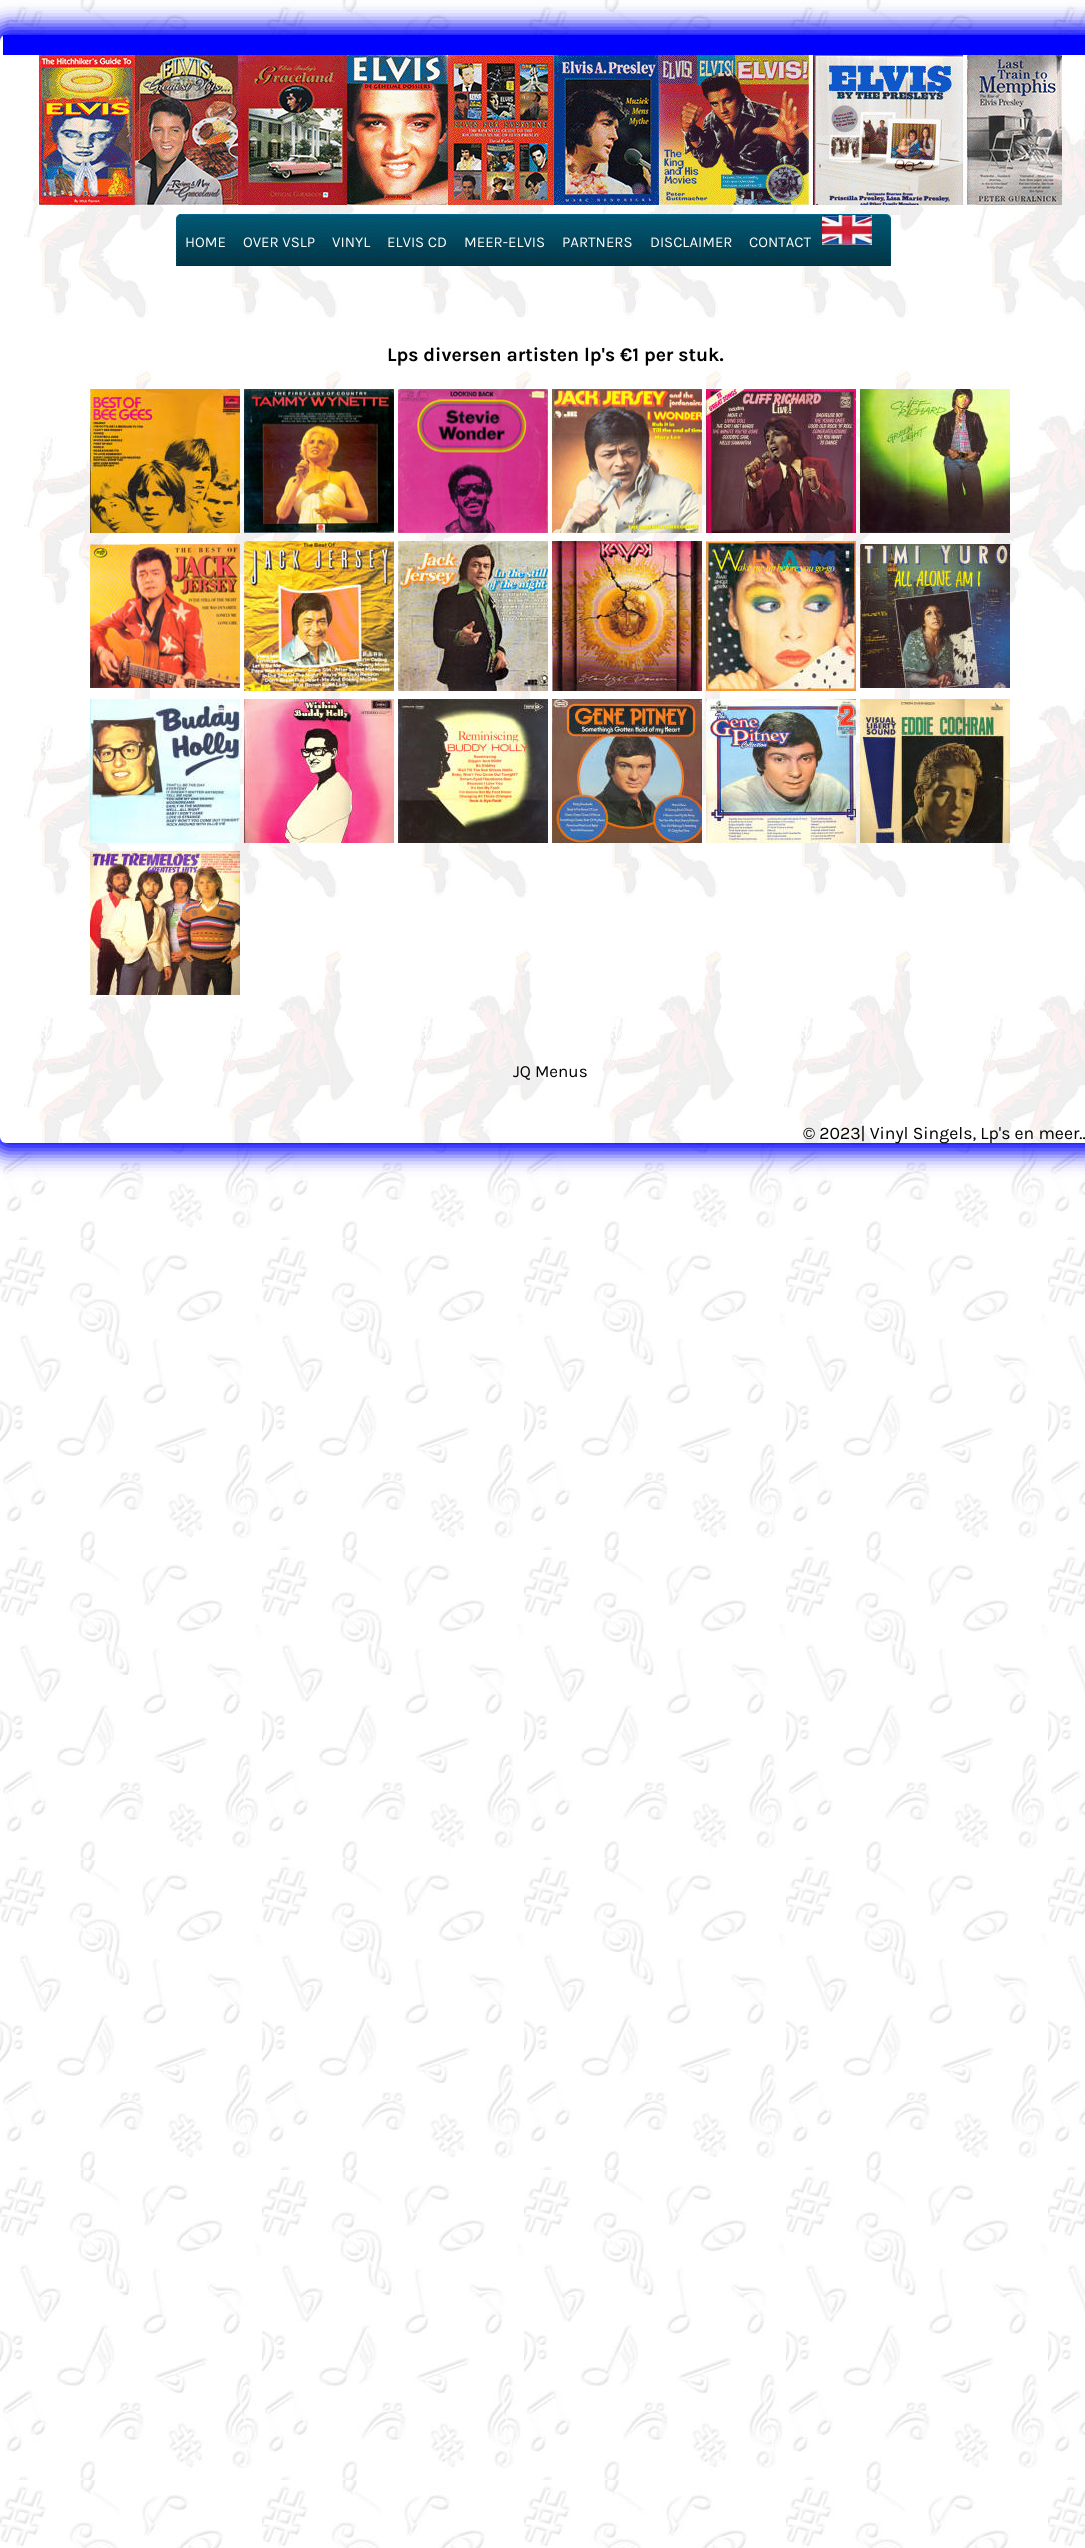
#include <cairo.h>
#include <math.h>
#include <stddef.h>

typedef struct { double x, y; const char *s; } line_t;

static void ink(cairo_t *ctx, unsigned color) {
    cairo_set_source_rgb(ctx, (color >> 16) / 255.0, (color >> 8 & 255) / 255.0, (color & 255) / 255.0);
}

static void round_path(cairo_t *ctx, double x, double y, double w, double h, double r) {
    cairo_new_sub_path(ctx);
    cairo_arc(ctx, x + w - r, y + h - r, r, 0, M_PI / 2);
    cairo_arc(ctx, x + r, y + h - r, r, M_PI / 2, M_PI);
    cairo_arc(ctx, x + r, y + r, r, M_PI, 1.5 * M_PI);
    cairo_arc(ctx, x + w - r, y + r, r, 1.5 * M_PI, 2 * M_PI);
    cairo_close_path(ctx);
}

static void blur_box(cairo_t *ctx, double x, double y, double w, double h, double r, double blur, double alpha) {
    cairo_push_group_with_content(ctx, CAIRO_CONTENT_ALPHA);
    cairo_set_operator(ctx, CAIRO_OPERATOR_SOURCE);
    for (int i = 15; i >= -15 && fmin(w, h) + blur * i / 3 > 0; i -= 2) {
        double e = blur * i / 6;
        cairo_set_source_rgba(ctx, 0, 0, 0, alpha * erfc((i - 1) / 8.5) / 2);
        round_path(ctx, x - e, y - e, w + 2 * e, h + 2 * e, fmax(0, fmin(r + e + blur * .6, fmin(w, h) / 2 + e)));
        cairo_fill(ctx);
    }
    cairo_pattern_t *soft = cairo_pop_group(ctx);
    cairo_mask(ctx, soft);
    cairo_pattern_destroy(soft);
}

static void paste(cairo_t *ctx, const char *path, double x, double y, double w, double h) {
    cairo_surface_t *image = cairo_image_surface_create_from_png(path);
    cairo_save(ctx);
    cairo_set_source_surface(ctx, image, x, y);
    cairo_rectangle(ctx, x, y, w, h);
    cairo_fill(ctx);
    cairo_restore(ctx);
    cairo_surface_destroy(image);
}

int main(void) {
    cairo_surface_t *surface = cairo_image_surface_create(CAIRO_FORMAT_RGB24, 1085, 2548);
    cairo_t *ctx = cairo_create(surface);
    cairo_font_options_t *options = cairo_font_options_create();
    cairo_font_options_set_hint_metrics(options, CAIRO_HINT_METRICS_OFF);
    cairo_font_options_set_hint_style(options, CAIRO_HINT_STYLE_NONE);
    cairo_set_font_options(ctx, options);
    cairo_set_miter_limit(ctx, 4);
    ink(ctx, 0xFFFFFF);
    cairo_paint(ctx);
    paste(ctx, "media/1.png", 0, 0, 1085, 2548);
    ink(ctx, 0x0000FF);
    blur_box(ctx, -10, 25, 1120, 1128, 16, 10, 1);
    paste(ctx, "media/2.png", 0, 36, 1085, 1107);
    ink(ctx, 0x0000FF);
    cairo_rectangle(ctx, 3, 35, 1082, 20);
    cairo_fill(ctx);
    paste(ctx, "media/3.png", 38, 55, 1024, 150);
    paste(ctx, "media/4.png", 176, 214, 3, 52);
    paste(ctx, "media/5.png", 179, 214, 712, 52);
    cairo_select_font_face(ctx, "Karla", CAIRO_FONT_SLANT_NORMAL, CAIRO_FONT_WEIGHT_NORMAL);
    cairo_set_font_size(ctx, 15);
    ink(ctx, 0xFFFFFF);
    {
        static const line_t items[] = {
            {185, 247, "HOME"},
            {243, 247, "OVER VSLP"},
            {332, 247, "VINYL"},
            {387, 247, "ELVIS CD"},
            {464, 247, "MEER-ELVIS"},
            {562, 247, "PARTNERS"},
            {650, 247, "DISCLAIMER"},
            {749, 247, "CONTACT"},
        };
        for (size_t i = 0; i < sizeof items / sizeof *items; i++) {
            cairo_move_to(ctx, items[i].x, items[i].y);
            cairo_show_text(ctx, items[i].s);
        }
    }
    paste(ctx, "media/6.png", 822, 215, 50, 30);
    cairo_select_font_face(ctx, "Karla", CAIRO_FONT_SLANT_NORMAL, CAIRO_FONT_WEIGHT_BOLD);
    cairo_set_font_size(ctx, 19.25);
    ink(ctx, 0x000000);
    cairo_move_to(ctx, 387, 361);
    cairo_show_text(ctx, "Lps diversen artisten lp's €1 per stuk.");
    paste(ctx, "media/7.png", 90, 389, 150, 144);
    paste(ctx, "media/8.png", 244, 389, 150, 144);
    paste(ctx, "media/9.png", 398, 389, 150, 144);
    paste(ctx, "media/10.png", 552, 389, 150, 144);
    paste(ctx, "media/11.png", 706, 389, 150, 144);
    paste(ctx, "media/12.png", 860, 389, 150, 144);
    paste(ctx, "media/13.png", 90, 544, 150, 144);
    paste(ctx, "media/14.png", 244, 541, 150, 150);
    paste(ctx, "media/15.png", 398, 541, 150, 150);
    paste(ctx, "media/16.png", 552, 541, 150, 150);
    paste(ctx, "media/17.png", 706, 541, 150, 150);
    paste(ctx, "media/18.png", 860, 544, 150, 144);
    paste(ctx, "media/19.png", 90, 699, 150, 144);
    paste(ctx, "media/20.png", 244, 699, 150, 144);
    paste(ctx, "media/21.png", 398, 699, 150, 144);
    paste(ctx, "media/22.png", 552, 699, 150, 144);
    paste(ctx, "media/23.png", 706, 699, 150, 144);
    paste(ctx, "media/24.png", 860, 699, 150, 144);
    paste(ctx, "media/25.png", 90, 851, 150, 144);
    cairo_select_font_face(ctx, "Karla", CAIRO_FONT_SLANT_NORMAL, CAIRO_FONT_WEIGHT_NORMAL);
    cairo_set_font_size(ctx, 17);
    cairo_move_to(ctx, 513, 1077);
    cairo_show_text(ctx, "JQ Menus");
    cairo_set_font_size(ctx, 17.6);
    cairo_move_to(ctx, 803, 1139);
    cairo_show_text(ctx, "© 2023| Vinyl Singels, Lp's en meer..");
    cairo_surface_write_to_png(surface, "image.png");
    cairo_font_options_destroy(options);
    cairo_destroy(ctx);
    cairo_surface_destroy(surface);
    return 0;
}
